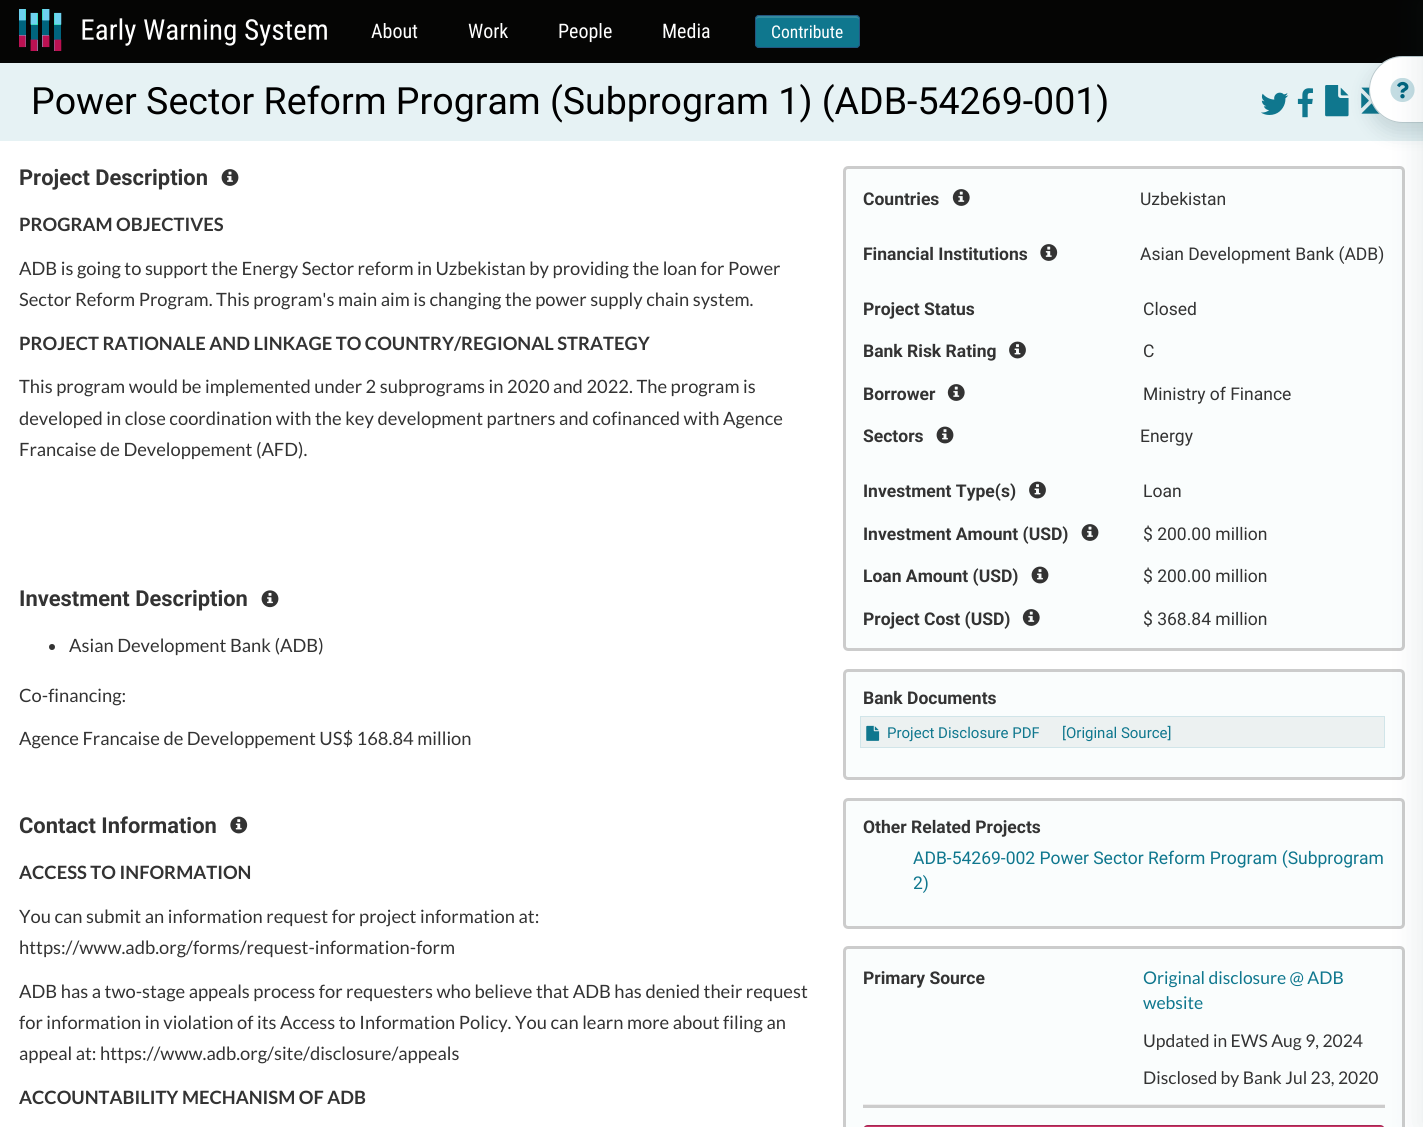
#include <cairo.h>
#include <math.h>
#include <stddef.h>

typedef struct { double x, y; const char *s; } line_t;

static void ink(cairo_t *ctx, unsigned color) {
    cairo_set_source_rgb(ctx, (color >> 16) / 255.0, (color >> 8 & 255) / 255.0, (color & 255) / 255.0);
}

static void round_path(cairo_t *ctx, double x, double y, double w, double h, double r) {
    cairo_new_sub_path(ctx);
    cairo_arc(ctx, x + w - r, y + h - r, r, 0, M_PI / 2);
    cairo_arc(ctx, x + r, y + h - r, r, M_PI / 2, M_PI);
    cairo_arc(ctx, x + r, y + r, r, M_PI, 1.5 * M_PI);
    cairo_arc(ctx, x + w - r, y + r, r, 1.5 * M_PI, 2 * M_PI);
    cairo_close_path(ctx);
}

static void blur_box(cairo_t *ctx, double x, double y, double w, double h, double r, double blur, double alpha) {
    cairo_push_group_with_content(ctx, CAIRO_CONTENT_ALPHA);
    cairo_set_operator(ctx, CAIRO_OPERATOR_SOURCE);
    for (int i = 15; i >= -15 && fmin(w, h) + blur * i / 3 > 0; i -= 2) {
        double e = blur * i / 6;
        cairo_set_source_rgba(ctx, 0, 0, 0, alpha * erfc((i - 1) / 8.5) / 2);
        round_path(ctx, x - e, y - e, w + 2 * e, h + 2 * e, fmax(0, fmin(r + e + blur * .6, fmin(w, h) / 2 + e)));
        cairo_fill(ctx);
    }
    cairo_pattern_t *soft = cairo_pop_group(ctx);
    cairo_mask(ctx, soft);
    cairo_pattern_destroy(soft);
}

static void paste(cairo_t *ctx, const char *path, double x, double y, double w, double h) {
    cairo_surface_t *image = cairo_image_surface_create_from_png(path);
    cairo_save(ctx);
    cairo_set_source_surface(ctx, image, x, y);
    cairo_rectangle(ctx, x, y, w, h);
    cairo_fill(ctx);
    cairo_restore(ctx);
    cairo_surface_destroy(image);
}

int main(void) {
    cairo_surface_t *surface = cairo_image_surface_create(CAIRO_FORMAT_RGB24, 1423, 1127);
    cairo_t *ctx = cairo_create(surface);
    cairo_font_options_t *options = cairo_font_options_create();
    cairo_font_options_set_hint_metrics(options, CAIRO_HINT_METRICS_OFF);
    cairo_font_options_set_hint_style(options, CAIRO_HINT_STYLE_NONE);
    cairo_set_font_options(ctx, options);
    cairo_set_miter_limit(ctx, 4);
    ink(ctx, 0xFFFFFF);
    cairo_paint(ctx);
    ink(ctx, 0x050504);
    cairo_rectangle(ctx, 0, 0, 1423, 63);
    cairo_fill(ctx);
    paste(ctx, "media/1.png", 19, 9, 308, 42);
    cairo_select_font_face(ctx, "Roboto Condensed", CAIRO_FONT_SLANT_NORMAL, CAIRO_FONT_WEIGHT_NORMAL);
    cairo_set_font_size(ctx, 20);
    ink(ctx, 0xFFFFFF);
    {
        static const line_t items[] = {
            {371, 38, "About"},
            {468, 38, "Work"},
            {558, 38, "People"},
            {662, 38, "Media"},
        };
        for (size_t i = 0; i < sizeof items / sizeof *items; i++) {
            cairo_move_to(ctx, items[i].x, items[i].y);
            cairo_show_text(ctx, items[i].s);
        }
    }
    ink(ctx, 0x0F778E);
    round_path(ctx, 755, 15, 105, 33, 4);
    cairo_fill(ctx);
    ink(ctx, 0x338B9F);
    cairo_new_path(ctx);
    cairo_move_to(ctx, 759, 18);
    cairo_line_to(ctx, 856, 18);
    cairo_curve_to(ctx, 858, 18, 859, 19, 859, 20);
    cairo_line_to(ctx, 859, 18);
    cairo_curve_to(ctx, 859, 17, 858, 16, 856, 16);
    cairo_line_to(ctx, 758, 16);
    cairo_curve_to(ctx, 757, 16, 756, 17, 756, 18);
    cairo_line_to(ctx, 756, 20);
    cairo_curve_to(ctx, 756, 19, 757, 18, 759, 18);
    cairo_close_path(ctx);
    cairo_fill(ctx);
    round_path(ctx, 755.5, 15.5, 104, 32, 3.5);
    ink(ctx, 0x245580);
    cairo_set_line_width(ctx, 1);
    cairo_stroke(ctx);
    cairo_set_font_size(ctx, 17.5);
    ink(ctx, 0xFFFFFF);
    cairo_move_to(ctx, 771, 38);
    cairo_show_text(ctx, "Contribute");
    ink(ctx, 0xE6F2F4);
    cairo_rectangle(ctx, 0, 63, 1423, 78);
    cairo_fill(ctx);
    paste(ctx, "media/5.png", 1361, 87, 19, 27);
    paste(ctx, "media/4.png", 1325, 85, 24, 32);
    ink(ctx, 0x0E3841);
    blur_box(ctx, 1369, 66, 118, 67, 33.5, 10, 0.15);
    ink(ctx, 0xFFFFFF);
    cairo_new_path(ctx);
    cairo_move_to(ctx, 1402.5, 56);
    cairo_line_to(ctx, 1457, 56);
    cairo_line_to(ctx, 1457, 123);
    cairo_line_to(ctx, 1402.5, 123);
    cairo_curve_to(ctx, 1384, 123, 1369, 108, 1369, 89.5);
    cairo_curve_to(ctx, 1369, 71, 1384, 56, 1402.5, 56);
    cairo_close_path(ctx);
    cairo_fill(ctx);
    cairo_new_path(ctx);
    cairo_move_to(ctx, 1402.5, 56.5);
    cairo_line_to(ctx, 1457.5, 56.5);
    cairo_line_to(ctx, 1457.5, 122.5);
    cairo_line_to(ctx, 1402.5, 122.5);
    cairo_curve_to(ctx, 1384.5, 122.5, 1369.5, 107.5, 1369.5, 89.5);
    cairo_curve_to(ctx, 1369.5, 71.5, 1384.5, 56.5, 1402.5, 56.5);
    cairo_close_path(ctx);
    cairo_set_source_rgba(ctx, 0.075, 0.286, 0.329, 0.3);
    cairo_stroke(ctx);
    paste(ctx, "media/6.png", 1390, 78, 25, 24);
    ink(ctx, 0xFAFDFD);
    round_path(ctx, 844.5, 167.5, 559, 482, 3.5);
    cairo_fill_preserve(ctx);
    ink(ctx, 0xCCCCCC);
    cairo_set_line_width(ctx, 3);
    cairo_stroke(ctx);
    ink(ctx, 0xFAFDFD);
    round_path(ctx, 844.5, 670.5, 559, 108, 3.5);
    cairo_fill_preserve(ctx);
    ink(ctx, 0xCCCCCC);
    cairo_stroke(ctx);
    ink(ctx, 0xECF1F1);
    cairo_rectangle(ctx, 860.5, 716.5, 524, 31);
    cairo_fill_preserve(ctx);
    ink(ctx, 0xD1E5E9);
    cairo_set_line_width(ctx, 1);
    cairo_stroke(ctx);
    ink(ctx, 0xFAFDFD);
    round_path(ctx, 844.5, 799.5, 559, 128, 3.5);
    cairo_fill_preserve(ctx);
    ink(ctx, 0xCCCCCC);
    cairo_set_line_width(ctx, 3);
    cairo_stroke(ctx);
    ink(ctx, 0xFAFDFD);
    round_path(ctx, 844.5, 947.5, 559, 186, 3.5);
    cairo_fill_preserve(ctx);
    ink(ctx, 0xCCCCCC);
    cairo_stroke(ctx);
    cairo_rectangle(ctx, 863, 1105, 522, 3);
    cairo_fill(ctx);
    ink(ctx, 0xEEEEEE);
    cairo_rectangle(ctx, 863, 1104, 522, 1);
    cairo_fill(ctx);
    ink(ctx, 0xCC3366);
    round_path(ctx, 863, 1125, 522, 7, 5);
    cairo_fill(ctx);
    round_path(ctx, 863.5, 1125.5, 521, 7, 4.5);
    cairo_set_source_rgba(ctx, 0, 0, 0, 0.2);
    cairo_set_line_width(ctx, 1);
    cairo_stroke(ctx);
    ink(ctx, 0x0E3841);
    blur_box(ctx, 1419, 0, 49, 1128, 0, 15, 0.1);
    cairo_select_font_face(ctx, "Roboto", CAIRO_FONT_SLANT_NORMAL, CAIRO_FONT_WEIGHT_NORMAL);
    cairo_set_font_size(ctx, 37.5);
    ink(ctx, 0x000000);
    cairo_move_to(ctx, 31, 114);
    cairo_show_text(ctx, "Power Sector Reform Program (Subprogram 1) (ADB-54269-001)");
    paste(ctx, "media/2.png", 1261, 92, 28, 23);
    paste(ctx, "media/3.png", 1297, 88, 16, 30);
    cairo_select_font_face(ctx, "Roboto", CAIRO_FONT_SLANT_NORMAL, CAIRO_FONT_WEIGHT_BOLD);
    cairo_set_font_size(ctx, 21.9);
    ink(ctx, 0x333333);
    cairo_move_to(ctx, 19, 185);
    cairo_show_text(ctx, "Project Description");
    paste(ctx, "media/7.png", 221, 169, 18, 17);
    cairo_select_font_face(ctx, "Lato", CAIRO_FONT_SLANT_NORMAL, CAIRO_FONT_WEIGHT_BOLD);
    cairo_set_font_size(ctx, 18.35);
    cairo_move_to(ctx, 19, 231);
    cairo_show_text(ctx, "PROGRAM OBJECTIVES");
    cairo_select_font_face(ctx, "Lato", CAIRO_FONT_SLANT_NORMAL, CAIRO_FONT_WEIGHT_NORMAL);
    cairo_move_to(ctx, 19, 275);
    cairo_show_text(ctx, "ADB is going to support the Energy Sector reform in Uzbekistan by providing the loan for Power");
    cairo_move_to(ctx, 19, 306);
    cairo_show_text(ctx, "Sector Reform Program. This program's main aim is changing the power supply chain system.");
    cairo_select_font_face(ctx, "Lato", CAIRO_FONT_SLANT_NORMAL, CAIRO_FONT_WEIGHT_BOLD);
    cairo_move_to(ctx, 19, 350);
    cairo_show_text(ctx, "PROJECT RATIONALE AND LINKAGE TO COUNTRY/REGIONAL STRATEGY");
    cairo_select_font_face(ctx, "Lato", CAIRO_FONT_SLANT_NORMAL, CAIRO_FONT_WEIGHT_NORMAL);
    {
        static const line_t items[] = {
            {19, 393, "This program would be implemented under 2 subprograms in 2020 and 2022. The program is"},
            {19, 425, "developed in close coordination with the key development partners and cofinanced with Agence"},
            {19, 456, "Francaise de Developpement (AFD)."},
        };
        for (size_t i = 0; i < sizeof items / sizeof *items; i++) {
            cairo_move_to(ctx, items[i].x, items[i].y);
            cairo_show_text(ctx, items[i].s);
        }
    }
    cairo_select_font_face(ctx, "Roboto", CAIRO_FONT_SLANT_NORMAL, CAIRO_FONT_WEIGHT_BOLD);
    cairo_set_font_size(ctx, 17.5);
    cairo_move_to(ctx, 863, 205);
    cairo_show_text(ctx, "Countries");
    paste(ctx, "media/8.png", 952, 189, 18, 17);
    cairo_select_font_face(ctx, "Roboto", CAIRO_FONT_SLANT_NORMAL, CAIRO_FONT_WEIGHT_NORMAL);
    cairo_move_to(ctx, 1140, 205);
    cairo_show_text(ctx, "Uzbekistan");
    cairo_select_font_face(ctx, "Roboto", CAIRO_FONT_SLANT_NORMAL, CAIRO_FONT_WEIGHT_BOLD);
    cairo_move_to(ctx, 863, 260);
    cairo_show_text(ctx, "Financial Institutions");
    paste(ctx, "media/9.png", 1040, 244, 18, 17);
    cairo_select_font_face(ctx, "Roboto", CAIRO_FONT_SLANT_NORMAL, CAIRO_FONT_WEIGHT_NORMAL);
    cairo_move_to(ctx, 1140, 260);
    cairo_show_text(ctx, "Asian Development Bank (ADB)");
    cairo_select_font_face(ctx, "Roboto", CAIRO_FONT_SLANT_NORMAL, CAIRO_FONT_WEIGHT_BOLD);
    cairo_move_to(ctx, 863, 315);
    cairo_show_text(ctx, "Project Status");
    cairo_select_font_face(ctx, "Roboto", CAIRO_FONT_SLANT_NORMAL, CAIRO_FONT_WEIGHT_NORMAL);
    cairo_move_to(ctx, 1143, 315);
    cairo_show_text(ctx, "Closed");
    cairo_select_font_face(ctx, "Roboto", CAIRO_FONT_SLANT_NORMAL, CAIRO_FONT_WEIGHT_BOLD);
    cairo_move_to(ctx, 863, 357);
    cairo_show_text(ctx, "Bank Risk Rating");
    paste(ctx, "media/10.png", 1009, 341, 17, 18);
    cairo_select_font_face(ctx, "Roboto", CAIRO_FONT_SLANT_NORMAL, CAIRO_FONT_WEIGHT_NORMAL);
    cairo_move_to(ctx, 1143, 357);
    cairo_show_text(ctx, "C");
    cairo_select_font_face(ctx, "Roboto", CAIRO_FONT_SLANT_NORMAL, CAIRO_FONT_WEIGHT_BOLD);
    cairo_move_to(ctx, 863, 400);
    cairo_show_text(ctx, "Borrower");
    paste(ctx, "media/8.png", 947, 384, 18, 17);
    cairo_select_font_face(ctx, "Roboto", CAIRO_FONT_SLANT_NORMAL, CAIRO_FONT_WEIGHT_NORMAL);
    cairo_move_to(ctx, 1143, 400);
    cairo_show_text(ctx, "Ministry of Finance");
    cairo_select_font_face(ctx, "Roboto", CAIRO_FONT_SLANT_NORMAL, CAIRO_FONT_WEIGHT_BOLD);
    cairo_move_to(ctx, 863, 442);
    cairo_show_text(ctx, "Sectors");
    paste(ctx, "media/11.png", 936, 426, 18, 18);
    cairo_select_font_face(ctx, "Roboto", CAIRO_FONT_SLANT_NORMAL, CAIRO_FONT_WEIGHT_NORMAL);
    cairo_move_to(ctx, 1140, 442);
    cairo_show_text(ctx, "Energy");
    cairo_select_font_face(ctx, "Roboto", CAIRO_FONT_SLANT_NORMAL, CAIRO_FONT_WEIGHT_BOLD);
    cairo_move_to(ctx, 863, 497);
    cairo_show_text(ctx, "Investment Type(s)");
    paste(ctx, "media/10.png", 1029, 481, 17, 18);
    cairo_select_font_face(ctx, "Roboto", CAIRO_FONT_SLANT_NORMAL, CAIRO_FONT_WEIGHT_NORMAL);
    cairo_move_to(ctx, 1143, 497);
    cairo_show_text(ctx, "Loan");
    cairo_select_font_face(ctx, "Roboto", CAIRO_FONT_SLANT_NORMAL, CAIRO_FONT_WEIGHT_BOLD);
    cairo_move_to(ctx, 863, 540);
    cairo_show_text(ctx, "Investment Amount (USD)");
    paste(ctx, "media/12.png", 1081, 524, 18, 17);
    cairo_select_font_face(ctx, "Roboto", CAIRO_FONT_SLANT_NORMAL, CAIRO_FONT_WEIGHT_NORMAL);
    cairo_move_to(ctx, 1143, 540);
    cairo_show_text(ctx, "$ 200.00 million");
    cairo_select_font_face(ctx, "Roboto", CAIRO_FONT_SLANT_NORMAL, CAIRO_FONT_WEIGHT_BOLD);
    cairo_move_to(ctx, 863, 582);
    cairo_show_text(ctx, "Loan Amount (USD)");
    paste(ctx, "media/11.png", 1031, 566, 18, 18);
    cairo_select_font_face(ctx, "Roboto", CAIRO_FONT_SLANT_NORMAL, CAIRO_FONT_WEIGHT_NORMAL);
    cairo_move_to(ctx, 1143, 582);
    cairo_show_text(ctx, "$ 200.00 million");
    cairo_select_font_face(ctx, "Roboto", CAIRO_FONT_SLANT_NORMAL, CAIRO_FONT_WEIGHT_BOLD);
    cairo_move_to(ctx, 863, 625);
    cairo_show_text(ctx, "Project Cost (USD)");
    paste(ctx, "media/8.png", 1022, 609, 18, 17);
    cairo_select_font_face(ctx, "Roboto", CAIRO_FONT_SLANT_NORMAL, CAIRO_FONT_WEIGHT_NORMAL);
    cairo_move_to(ctx, 1143, 625);
    cairo_show_text(ctx, "$ 368.84 million");
    cairo_select_font_face(ctx, "Roboto", CAIRO_FONT_SLANT_NORMAL, CAIRO_FONT_WEIGHT_BOLD);
    cairo_move_to(ctx, 863, 704);
    cairo_show_text(ctx, "Bank Documents");
    paste(ctx, "media/13.png", 866, 725, 14, 16);
    cairo_select_font_face(ctx, "Roboto", CAIRO_FONT_SLANT_NORMAL, CAIRO_FONT_WEIGHT_NORMAL);
    cairo_set_font_size(ctx, 15);
    ink(ctx, 0x0F778E);
    cairo_move_to(ctx, 887, 738);
    cairo_show_text(ctx, "Project Disclosure PDF");
    cairo_move_to(ctx, 1062, 738);
    cairo_show_text(ctx, "[Original Source]");
    cairo_select_font_face(ctx, "Roboto", CAIRO_FONT_SLANT_NORMAL, CAIRO_FONT_WEIGHT_BOLD);
    cairo_set_font_size(ctx, 17.5);
    ink(ctx, 0x333333);
    cairo_move_to(ctx, 863, 833);
    cairo_show_text(ctx, "Other Related Projects");
    cairo_select_font_face(ctx, "Roboto", CAIRO_FONT_SLANT_NORMAL, CAIRO_FONT_WEIGHT_NORMAL);
    ink(ctx, 0x0F778E);
    cairo_move_to(ctx, 913, 864);
    cairo_show_text(ctx, "ADB-54269-002 Power Sector Reform Program (Subprogram");
    cairo_move_to(ctx, 913, 889);
    cairo_show_text(ctx, "2)");
    cairo_select_font_face(ctx, "Roboto", CAIRO_FONT_SLANT_NORMAL, CAIRO_FONT_WEIGHT_BOLD);
    ink(ctx, 0x333333);
    cairo_move_to(ctx, 863, 984);
    cairo_show_text(ctx, "Primary Source");
    cairo_select_font_face(ctx, "Lato", CAIRO_FONT_SLANT_NORMAL, CAIRO_FONT_WEIGHT_NORMAL);
    ink(ctx, 0x0F778E);
    cairo_move_to(ctx, 1143, 984);
    cairo_show_text(ctx, "Original disclosure @ ADB");
    cairo_move_to(ctx, 1143, 1009);
    cairo_show_text(ctx, "website");
    ink(ctx, 0x333333);
    cairo_move_to(ctx, 1143, 1047);
    cairo_show_text(ctx, "Updated in EWS Aug 9, 2024");
    cairo_move_to(ctx, 1143, 1084);
    cairo_show_text(ctx, "Disclosed by Bank Jul 23, 2020");
    cairo_select_font_face(ctx, "Roboto", CAIRO_FONT_SLANT_NORMAL, CAIRO_FONT_WEIGHT_BOLD);
    cairo_set_font_size(ctx, 21.9);
    cairo_move_to(ctx, 19, 606);
    cairo_show_text(ctx, "Investment Description");
    paste(ctx, "media/14.png", 261, 590, 18, 18);
    cairo_arc(ctx, 52, 647, 3, 0, 2 * M_PI);
    cairo_fill(ctx);
    cairo_select_font_face(ctx, "Lato", CAIRO_FONT_SLANT_NORMAL, CAIRO_FONT_WEIGHT_NORMAL);
    cairo_set_font_size(ctx, 18.35);
    {
        static const line_t items[] = {
            {69, 652, "Asian Development Bank (ADB)"},
            {19, 702, "Co-financing:"},
            {19, 745, "Agence Francaise de Developpement US$ 168.84 million"},
        };
        for (size_t i = 0; i < sizeof items / sizeof *items; i++) {
            cairo_move_to(ctx, items[i].x, items[i].y);
            cairo_show_text(ctx, items[i].s);
        }
    }
    cairo_select_font_face(ctx, "Roboto", CAIRO_FONT_SLANT_NORMAL, CAIRO_FONT_WEIGHT_BOLD);
    cairo_set_font_size(ctx, 21.9);
    cairo_move_to(ctx, 19, 833);
    cairo_show_text(ctx, "Contact Information");
    paste(ctx, "media/15.png", 230, 816, 18, 18);
    cairo_select_font_face(ctx, "Lato", CAIRO_FONT_SLANT_NORMAL, CAIRO_FONT_WEIGHT_BOLD);
    cairo_set_font_size(ctx, 18.35);
    cairo_move_to(ctx, 19, 879);
    cairo_show_text(ctx, "ACCESS TO INFORMATION");
    cairo_select_font_face(ctx, "Lato", CAIRO_FONT_SLANT_NORMAL, CAIRO_FONT_WEIGHT_NORMAL);
    {
        static const line_t items[] = {
            {19, 923, "You can submit an information request for project information at:"},
            {19, 954, "https://www.adb.org/forms/request-information-form"},
            {19, 998, "ADB has a two-stage appeals process for requesters who believe that ADB has denied their request"},
            {19, 1029, "for information in violation of its Access to Information Policy. You can learn more about filing an"},
            {19, 1060, "appeal at: https://www.adb.org/site/disclosure/appeals"},
        };
        for (size_t i = 0; i < sizeof items / sizeof *items; i++) {
            cairo_move_to(ctx, items[i].x, items[i].y);
            cairo_show_text(ctx, items[i].s);
        }
    }
    cairo_select_font_face(ctx, "Lato", CAIRO_FONT_SLANT_NORMAL, CAIRO_FONT_WEIGHT_BOLD);
    cairo_move_to(ctx, 19, 1104);
    cairo_show_text(ctx, "ACCOUNTABILITY MECHANISM OF ADB");
    cairo_surface_write_to_png(surface, "image.png");
    cairo_font_options_destroy(options);
    cairo_destroy(ctx);
    cairo_surface_destroy(surface);
    return 0;
}
